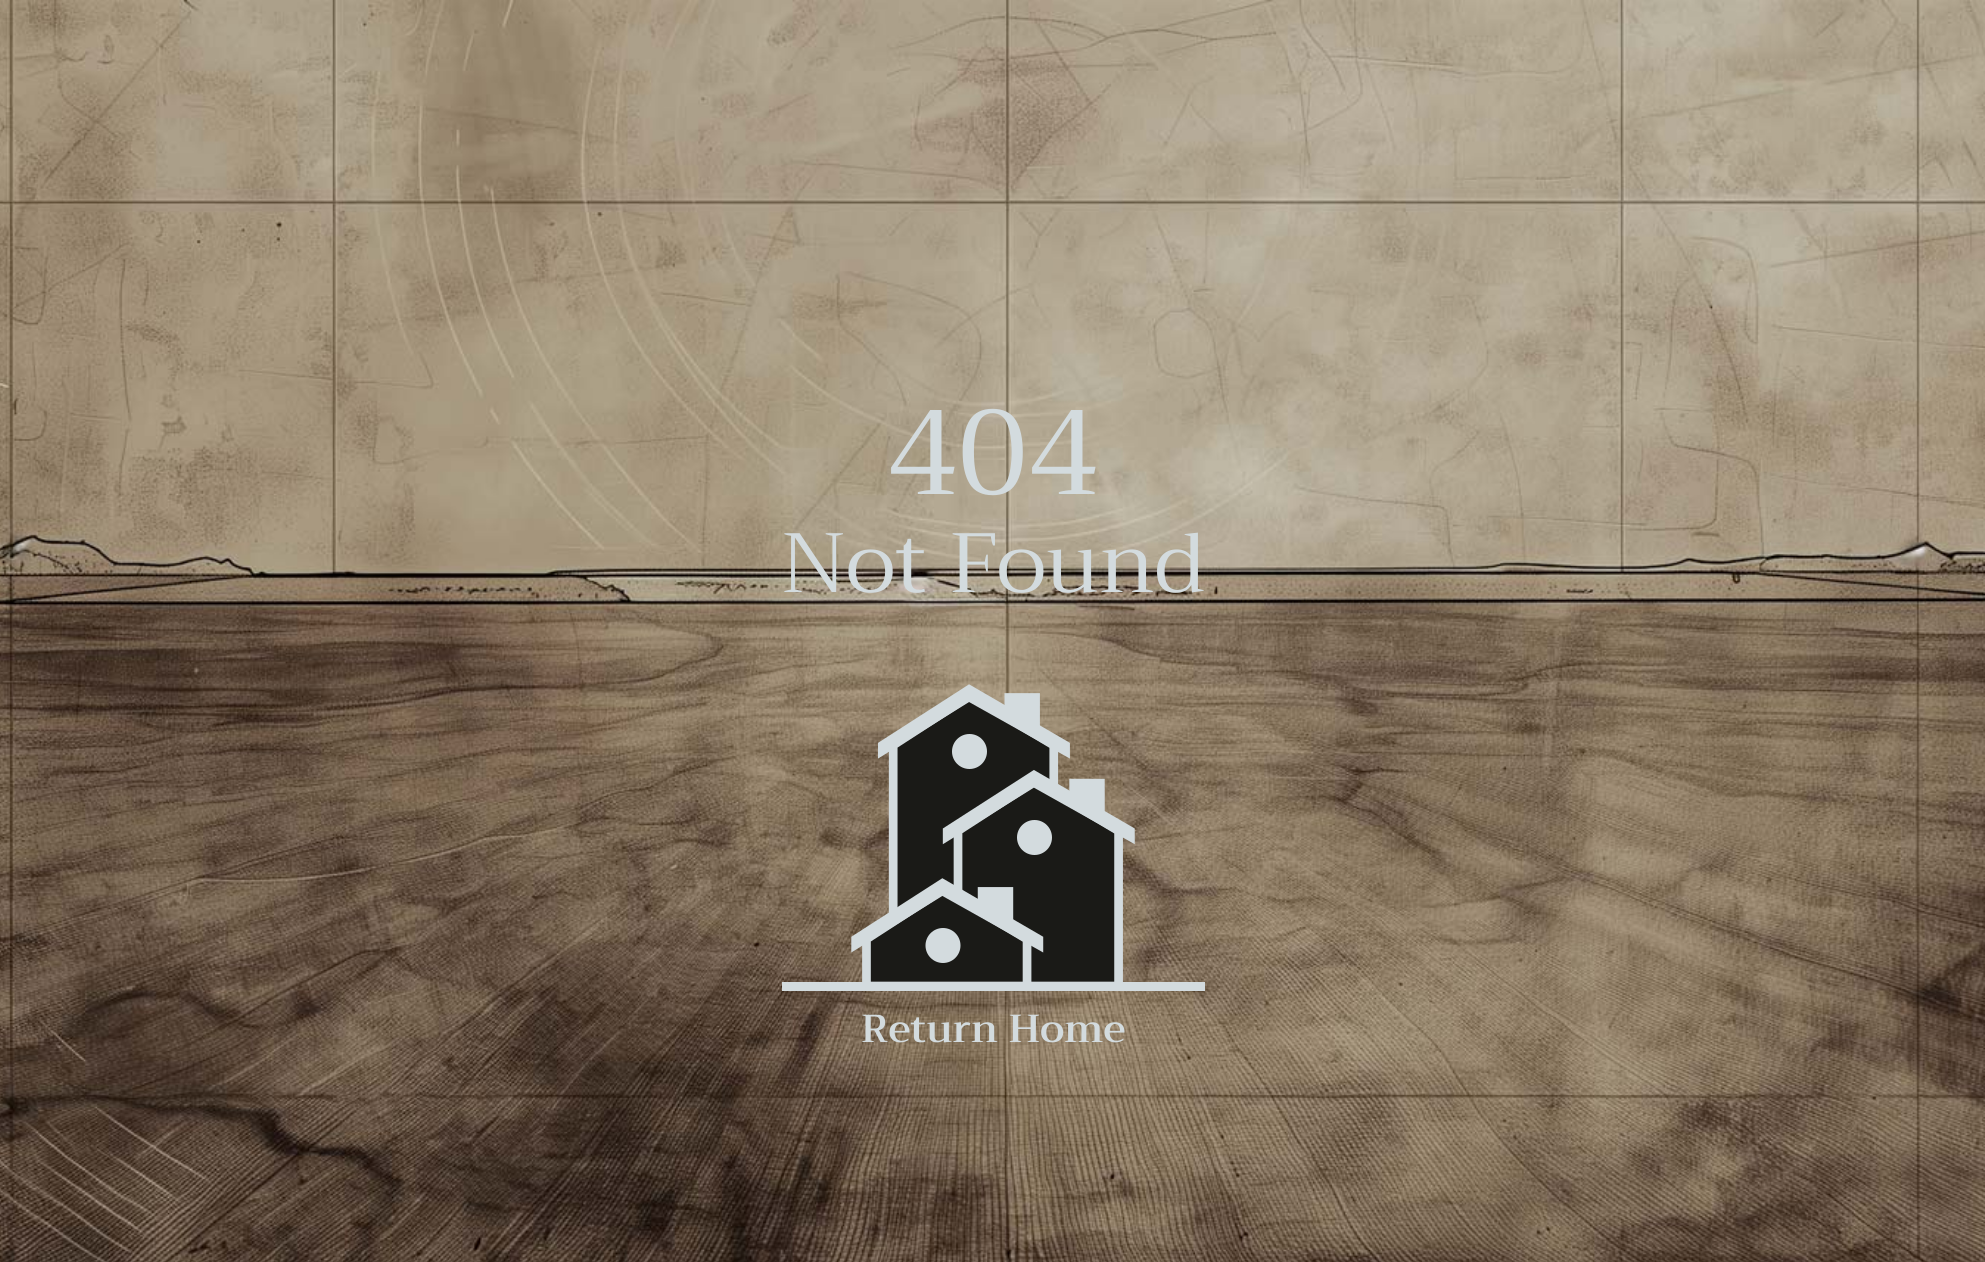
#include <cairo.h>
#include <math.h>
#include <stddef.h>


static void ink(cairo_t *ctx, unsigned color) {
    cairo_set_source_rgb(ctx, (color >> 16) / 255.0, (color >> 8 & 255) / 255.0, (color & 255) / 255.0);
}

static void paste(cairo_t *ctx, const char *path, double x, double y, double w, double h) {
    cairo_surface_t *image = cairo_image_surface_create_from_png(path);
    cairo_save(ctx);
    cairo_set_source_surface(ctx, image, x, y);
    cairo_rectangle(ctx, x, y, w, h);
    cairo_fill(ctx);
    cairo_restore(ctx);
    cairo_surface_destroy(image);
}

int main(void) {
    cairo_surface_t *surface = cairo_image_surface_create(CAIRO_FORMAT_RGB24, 1985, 1262);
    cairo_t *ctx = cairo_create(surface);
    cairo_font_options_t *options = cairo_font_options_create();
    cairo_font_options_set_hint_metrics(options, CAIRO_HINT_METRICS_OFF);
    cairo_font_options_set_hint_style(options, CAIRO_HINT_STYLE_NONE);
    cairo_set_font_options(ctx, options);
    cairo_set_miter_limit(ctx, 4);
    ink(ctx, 0xFFFFFF);
    cairo_paint(ctx);
    paste(ctx, "media/1.png", 0, 0, 1985, 1262);
    cairo_select_font_face(ctx, "Trirong", CAIRO_FONT_SLANT_NORMAL, CAIRO_FONT_WEIGHT_NORMAL);
    cairo_set_font_size(ctx, 120);
    ink(ctx, 0xD3DBDE);
    cairo_move_to(ctx, 887, 494);
    cairo_show_text(ctx, "404");
    cairo_set_font_size(ctx, 84);
    cairo_move_to(ctx, 781, 592);
    cairo_show_text(ctx, "Not Found");
    paste(ctx, "media/2.png", 782, 684, 423, 307);
    cairo_select_font_face(ctx, "Trirong SemiBold", CAIRO_FONT_SLANT_NORMAL, CAIRO_FONT_WEIGHT_NORMAL);
    cairo_set_font_size(ctx, 39);
    cairo_move_to(ctx, 861, 1042);
    cairo_show_text(ctx, "Return Home");
    cairo_surface_write_to_png(surface, "image.png");
    cairo_font_options_destroy(options);
    cairo_destroy(ctx);
    cairo_surface_destroy(surface);
    return 0;
}
